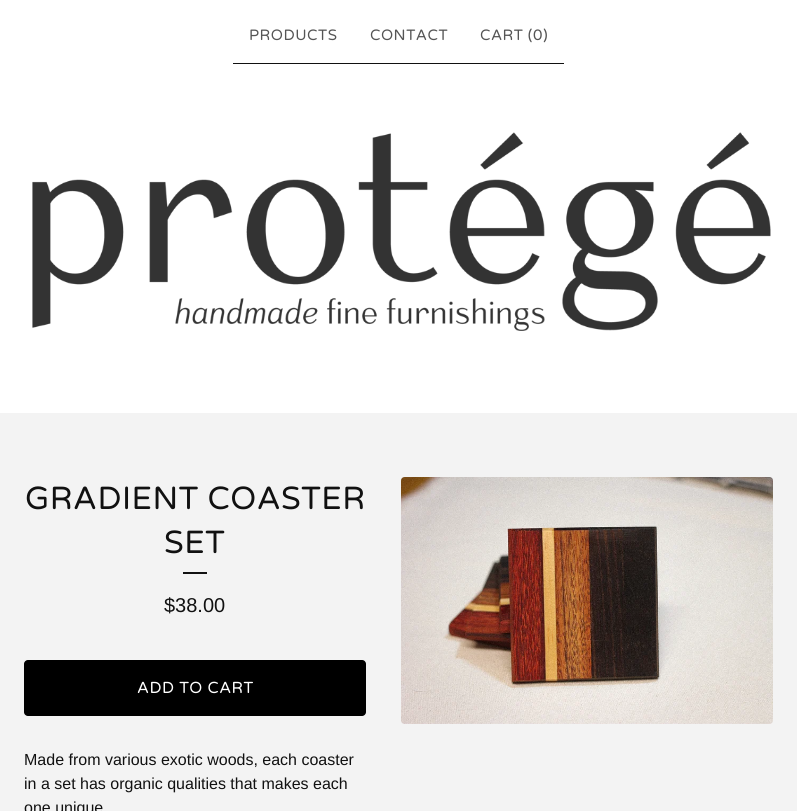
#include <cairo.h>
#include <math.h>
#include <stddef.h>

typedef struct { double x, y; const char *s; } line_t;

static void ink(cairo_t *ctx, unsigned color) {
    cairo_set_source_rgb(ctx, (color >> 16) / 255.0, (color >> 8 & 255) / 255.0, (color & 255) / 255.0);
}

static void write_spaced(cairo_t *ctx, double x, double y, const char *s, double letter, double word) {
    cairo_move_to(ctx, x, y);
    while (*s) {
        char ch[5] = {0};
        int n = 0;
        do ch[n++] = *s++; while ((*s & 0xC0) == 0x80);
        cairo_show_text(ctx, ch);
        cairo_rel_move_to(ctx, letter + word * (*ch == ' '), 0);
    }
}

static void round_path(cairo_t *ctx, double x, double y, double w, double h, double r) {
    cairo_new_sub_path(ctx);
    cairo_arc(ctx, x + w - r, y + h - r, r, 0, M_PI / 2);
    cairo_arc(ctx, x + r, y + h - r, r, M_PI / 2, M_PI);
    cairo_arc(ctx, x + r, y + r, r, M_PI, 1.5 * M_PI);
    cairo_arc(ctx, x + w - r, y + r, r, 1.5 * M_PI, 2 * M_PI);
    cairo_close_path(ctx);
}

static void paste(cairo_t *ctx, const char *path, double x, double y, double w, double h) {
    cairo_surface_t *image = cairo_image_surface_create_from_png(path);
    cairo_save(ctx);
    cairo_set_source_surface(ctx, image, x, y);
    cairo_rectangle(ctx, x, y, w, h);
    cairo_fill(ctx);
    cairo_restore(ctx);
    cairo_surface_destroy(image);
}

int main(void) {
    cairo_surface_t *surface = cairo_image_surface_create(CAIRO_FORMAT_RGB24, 797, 811);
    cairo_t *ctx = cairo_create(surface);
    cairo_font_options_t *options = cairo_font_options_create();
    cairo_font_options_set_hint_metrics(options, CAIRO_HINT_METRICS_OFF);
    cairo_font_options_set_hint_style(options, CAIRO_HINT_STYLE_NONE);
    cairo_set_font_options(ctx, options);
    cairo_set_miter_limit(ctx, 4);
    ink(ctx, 0xFFFFFF);
    cairo_paint(ctx);
    ink(ctx, 0x111111);
    cairo_rectangle(ctx, 233, 63, 331, 1);
    cairo_fill(ctx);
    cairo_select_font_face(ctx, "Varela Round", CAIRO_FONT_SLANT_NORMAL, CAIRO_FONT_WEIGHT_NORMAL);
    cairo_set_font_size(ctx, 15);
    ink(ctx, 0x555555);
    {
        static const line_t items[] = {
            {249, 40, "PRODUCTS"},
            {370, 40, "CONTACT"},
            {480, 40, "CART (0)"},
        };
        for (size_t i = 0; i < sizeof items / sizeof *items; i++) {
            write_spaced(ctx, items[i].x, items[i].y, items[i].s, 0.5, 0);
        }
    }
    paste(ctx, "media/1.png", 32, 132, 739, 199);
    ink(ctx, 0xF3F3F3);
    cairo_rectangle(ctx, 0, 413, 797, 398);
    cairo_fill(ctx);
    cairo_set_font_size(ctx, 32);
    ink(ctx, 0x111111);
    write_spaced(ctx, 25, 509, "GRADIENT COASTER", 0.5, 0);
    write_spaced(ctx, 164, 553, "SET", 0.5, 0);
    cairo_rectangle(ctx, 183, 572, 24, 2);
    cairo_fill(ctx);
    cairo_select_font_face(ctx, "Liberation Sans", CAIRO_FONT_SLANT_NORMAL, CAIRO_FONT_WEIGHT_NORMAL);
    cairo_set_font_size(ctx, 20);
    cairo_move_to(ctx, 164, 612);
    cairo_show_text(ctx, "$38.00");
    paste(ctx, "media/2.png", 401, 477, 372, 247);
    ink(ctx, 0x000000);
    round_path(ctx, 24, 660, 342, 56, 4);
    cairo_fill(ctx);
    cairo_select_font_face(ctx, "Varela Round", CAIRO_FONT_SLANT_NORMAL, CAIRO_FONT_WEIGHT_NORMAL);
    cairo_set_font_size(ctx, 16);
    ink(ctx, 0xFFFFFF);
    write_spaced(ctx, 137, 693, "ADD TO CART", 0.5, 0);
    cairo_select_font_face(ctx, "Liberation Sans", CAIRO_FONT_SLANT_NORMAL, CAIRO_FONT_WEIGHT_NORMAL);
    ink(ctx, 0x111111);
    {
        static const line_t items[] = {
            {24, 765, "Made from various exotic woods, each coaster"},
            {24, 789, "in a set has organic qualities that makes each"},
            {24, 813, "one unique"},
        };
        for (size_t i = 0; i < sizeof items / sizeof *items; i++) {
            cairo_move_to(ctx, items[i].x, items[i].y);
            cairo_show_text(ctx, items[i].s);
        }
    }
    cairo_surface_write_to_png(surface, "image.png");
    cairo_font_options_destroy(options);
    cairo_destroy(ctx);
    cairo_surface_destroy(surface);
    return 0;
}
